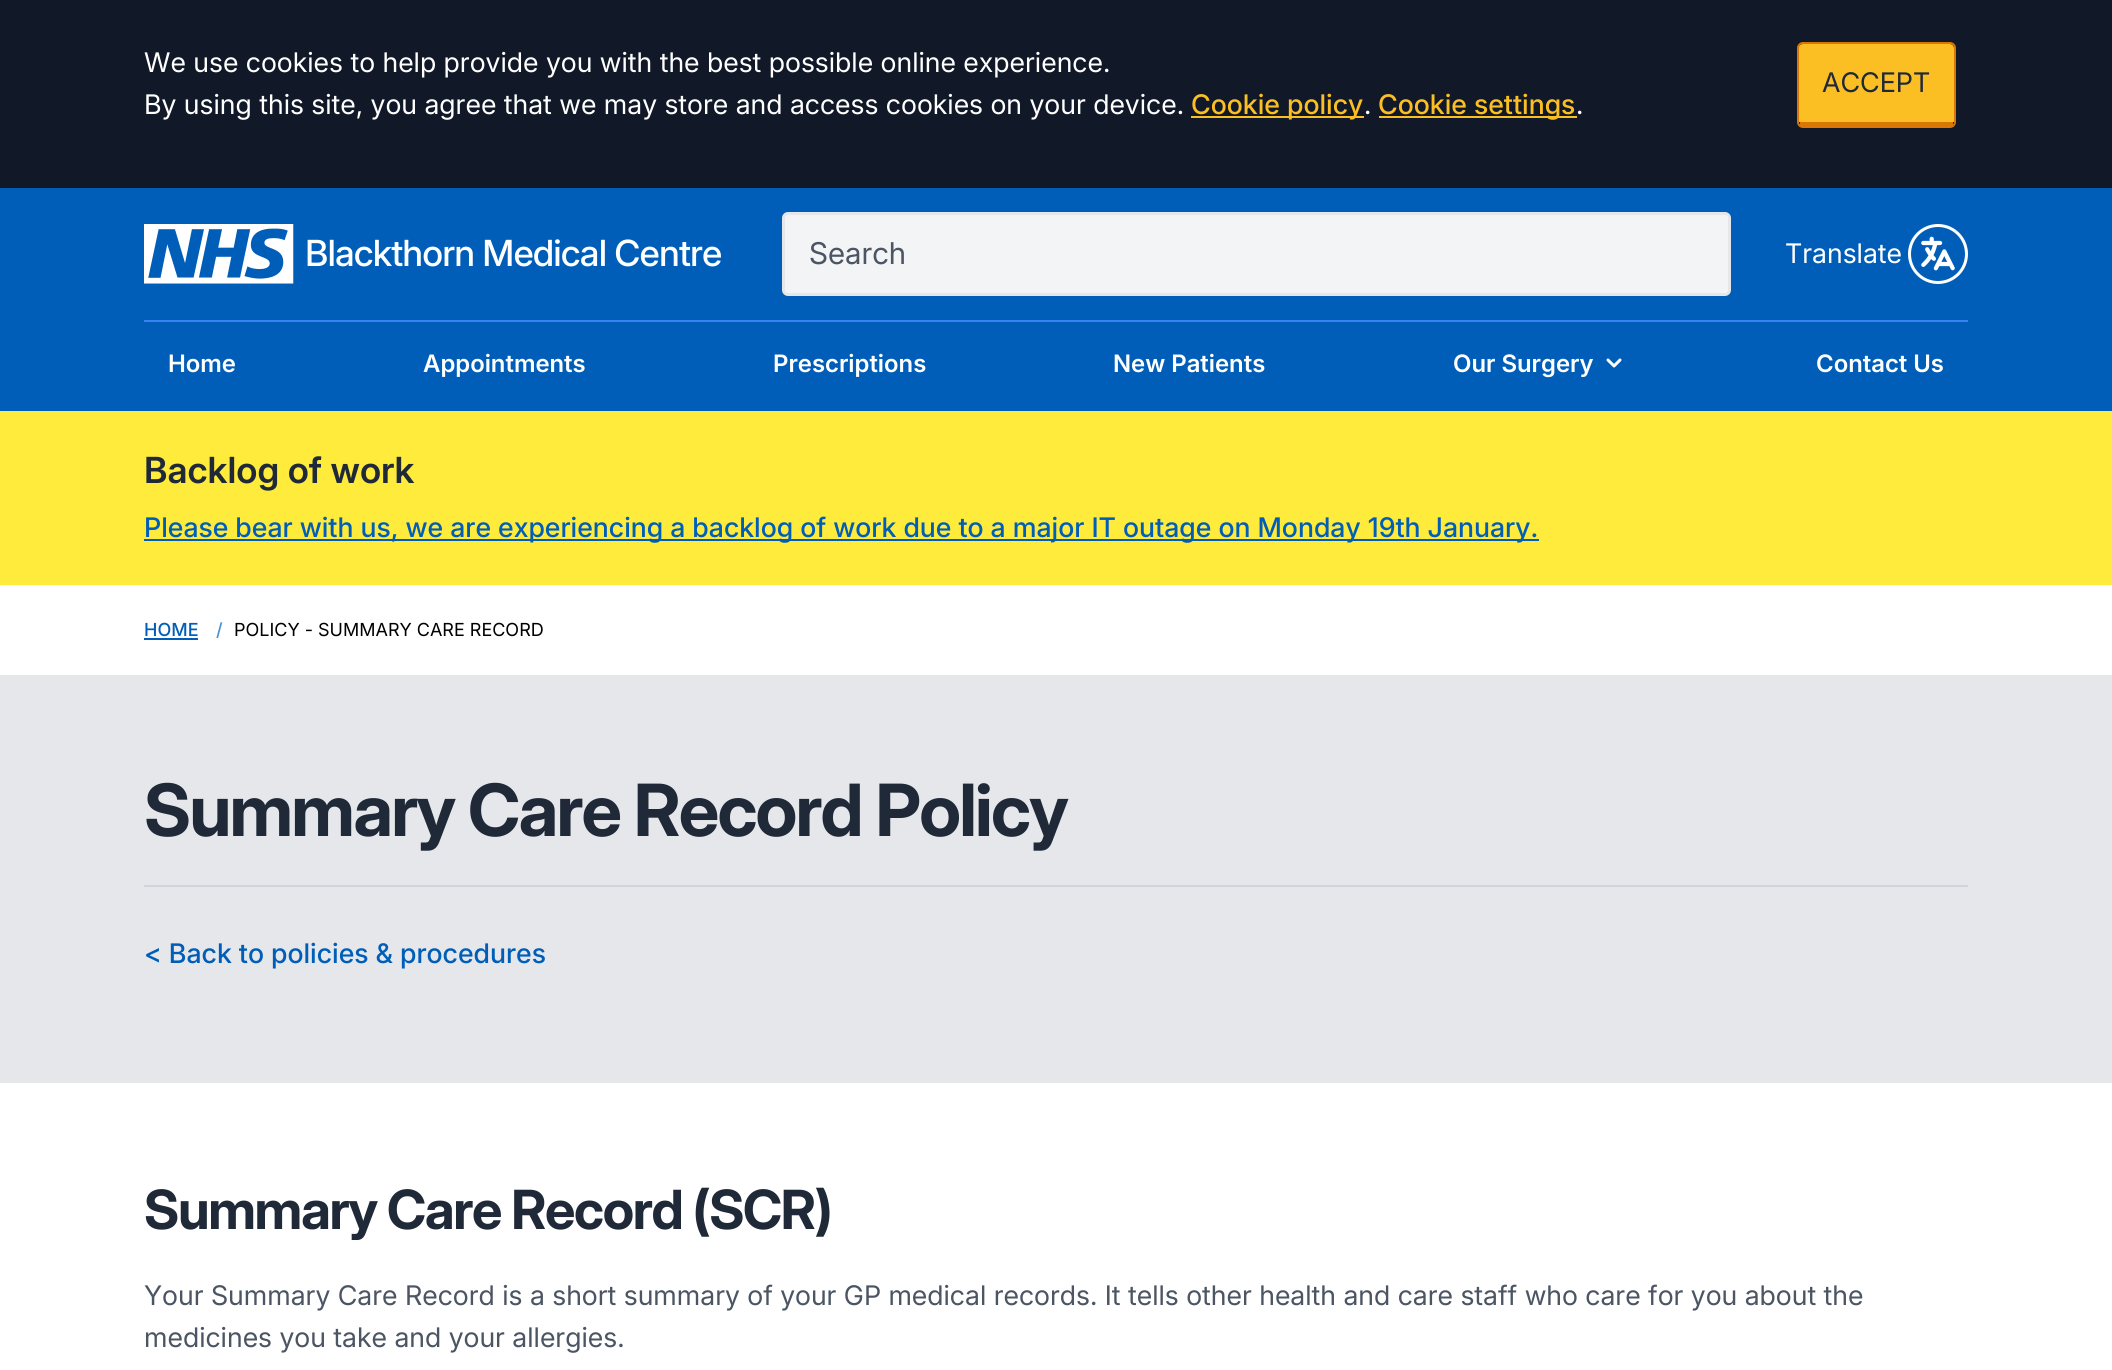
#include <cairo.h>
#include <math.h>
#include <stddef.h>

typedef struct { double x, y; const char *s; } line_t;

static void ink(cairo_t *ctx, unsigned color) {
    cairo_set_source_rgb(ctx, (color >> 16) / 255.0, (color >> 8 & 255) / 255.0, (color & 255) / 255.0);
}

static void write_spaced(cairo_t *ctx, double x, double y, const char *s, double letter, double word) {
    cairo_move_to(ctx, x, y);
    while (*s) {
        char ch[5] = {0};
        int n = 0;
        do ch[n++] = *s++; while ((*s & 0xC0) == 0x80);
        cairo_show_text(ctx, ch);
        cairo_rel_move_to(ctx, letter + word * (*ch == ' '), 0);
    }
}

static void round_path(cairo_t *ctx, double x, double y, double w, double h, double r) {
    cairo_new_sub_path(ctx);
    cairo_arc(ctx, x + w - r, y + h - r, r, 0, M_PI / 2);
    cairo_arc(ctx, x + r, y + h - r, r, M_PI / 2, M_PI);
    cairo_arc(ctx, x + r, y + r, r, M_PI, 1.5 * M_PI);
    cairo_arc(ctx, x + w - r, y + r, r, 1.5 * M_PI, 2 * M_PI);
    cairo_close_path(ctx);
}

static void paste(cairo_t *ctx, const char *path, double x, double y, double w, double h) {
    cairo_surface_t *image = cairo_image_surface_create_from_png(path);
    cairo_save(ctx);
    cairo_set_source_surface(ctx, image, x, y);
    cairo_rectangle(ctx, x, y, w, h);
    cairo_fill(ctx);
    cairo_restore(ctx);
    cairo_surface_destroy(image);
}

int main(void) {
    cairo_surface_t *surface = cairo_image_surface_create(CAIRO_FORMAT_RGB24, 2112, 1370);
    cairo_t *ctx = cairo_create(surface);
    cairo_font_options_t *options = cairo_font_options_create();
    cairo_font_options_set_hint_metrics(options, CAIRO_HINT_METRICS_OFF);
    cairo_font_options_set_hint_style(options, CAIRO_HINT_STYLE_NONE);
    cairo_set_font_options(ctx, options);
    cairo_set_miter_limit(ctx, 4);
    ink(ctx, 0x111827);
    cairo_paint(ctx);
    cairo_select_font_face(ctx, "Inter", CAIRO_FONT_SLANT_NORMAL, CAIRO_FONT_WEIGHT_NORMAL);
    cairo_set_font_size(ctx, 27);
    ink(ctx, 0xFFFFFF);
    cairo_move_to(ctx, 144, 72);
    cairo_show_text(ctx, "We use cookies to help provide you with the best possible online experience.");
    cairo_move_to(ctx, 144, 114);
    cairo_show_text(ctx, "By using this site, you agree that we may store and access cookies on your device.");
    ink(ctx, 0xFBBF24);
    cairo_rectangle(ctx, 1191, 116, 173, 2);
    cairo_fill(ctx);
    cairo_select_font_face(ctx, "Inter Medium", CAIRO_FONT_SLANT_NORMAL, CAIRO_FONT_WEIGHT_NORMAL);
    cairo_move_to(ctx, 1191, 114);
    cairo_show_text(ctx, "Cookie policy");
    cairo_select_font_face(ctx, "Inter", CAIRO_FONT_SLANT_NORMAL, CAIRO_FONT_WEIGHT_NORMAL);
    ink(ctx, 0xFFFFFF);
    cairo_move_to(ctx, 1364, 114);
    cairo_show_text(ctx, ".");
    ink(ctx, 0xFBBF24);
    cairo_rectangle(ctx, 1379, 116, 198, 2);
    cairo_fill(ctx);
    cairo_select_font_face(ctx, "Inter Medium", CAIRO_FONT_SLANT_NORMAL, CAIRO_FONT_WEIGHT_NORMAL);
    cairo_move_to(ctx, 1378, 114);
    cairo_show_text(ctx, "Cookie settings");
    cairo_select_font_face(ctx, "Inter", CAIRO_FONT_SLANT_NORMAL, CAIRO_FONT_WEIGHT_NORMAL);
    ink(ctx, 0xFFFFFF);
    cairo_move_to(ctx, 1576, 114);
    cairo_show_text(ctx, ".");
    ink(ctx, 0xFBBF24);
    cairo_new_path(ctx);
    cairo_move_to(ctx, 1803, 44);
    cairo_line_to(ctx, 1950, 44);
    cairo_curve_to(ctx, 1952, 44, 1954, 46, 1954, 48);
    cairo_line_to(ctx, 1954, 122);
    cairo_line_to(ctx, 1798, 122);
    cairo_line_to(ctx, 1798, 48);
    cairo_curve_to(ctx, 1798, 46, 1801, 44, 1803, 44);
    cairo_close_path(ctx);
    cairo_fill(ctx);
    round_path(ctx, 1798, 43, 157, 84, 5);
    ink(ctx, 0xD97706);
    cairo_stroke(ctx);
    cairo_rectangle(ctx, 1800, 122, 153, 4);
    cairo_fill(ctx);
    ink(ctx, 0x1F2937);
    cairo_move_to(ctx, 1822, 92);
    cairo_show_text(ctx, "ACCEPT");
    ink(ctx, 0x005EB8);
    cairo_rectangle(ctx, 0, 188, 2112, 223);
    cairo_fill(ctx);
    paste(ctx, "media/1.png", 144, 224, 150, 60);
    cairo_select_font_face(ctx, "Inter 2 Medium", CAIRO_FONT_SLANT_NORMAL, CAIRO_FONT_WEIGHT_NORMAL);
    cairo_set_font_size(ctx, 36);
    ink(ctx, 0xFFFFFF);
    write_spaced(ctx, 305, 266, "Blackthorn Medical Centre", -0.9, 0);
    ink(ctx, 0xF3F4F6);
    round_path(ctx, 783.5, 213.5, 946, 81, 4.5);
    cairo_fill_preserve(ctx);
    ink(ctx, 0xE5E7EB);
    cairo_set_line_width(ctx, 3);
    cairo_stroke(ctx);
    cairo_select_font_face(ctx, "Inter 2", CAIRO_FONT_SLANT_NORMAL, CAIRO_FONT_WEIGHT_NORMAL);
    cairo_set_font_size(ctx, 30);
    ink(ctx, 0x4B5563);
    cairo_move_to(ctx, 809, 264);
    cairo_show_text(ctx, "Search");
    cairo_select_font_face(ctx, "Inter", CAIRO_FONT_SLANT_NORMAL, CAIRO_FONT_WEIGHT_NORMAL);
    cairo_set_font_size(ctx, 27);
    ink(ctx, 0xFFFFFF);
    cairo_move_to(ctx, 1785, 263);
    cairo_show_text(ctx, "Translate");
    cairo_new_path(ctx);
    cairo_arc(ctx, 1938, 254, 28.5, 0, 2 * M_PI);
    cairo_stroke(ctx);
    paste(ctx, "media/2.png", 1921, 236, 34, 35);
    ink(ctx, 0x3B82F6);
    cairo_rectangle(ctx, 144, 320, 1824, 2);
    cairo_fill(ctx);
    cairo_select_font_face(ctx, "Inter SemiBold", CAIRO_FONT_SLANT_NORMAL, CAIRO_FONT_WEIGHT_NORMAL);
    cairo_set_font_size(ctx, 24);
    ink(ctx, 0xFFFFFF);
    {
        static const line_t items[] = {
            {168, 372, "Home"},
            {423, 372, "Appointments"},
            {773, 372, "Prescriptions"},
            {1113, 372, "New Patients"},
            {1453, 372, "Our Surgery"},
        };
        for (size_t i = 0; i < sizeof items / sizeof *items; i++) {
            cairo_move_to(ctx, items[i].x, items[i].y);
            cairo_show_text(ctx, items[i].s);
        }
    }
    paste(ctx, "media/3.png", 1606, 358, 16, 10);
    cairo_move_to(ctx, 1816, 372);
    cairo_show_text(ctx, "Contact Us");
    ink(ctx, 0xFFEB3B);
    cairo_rectangle(ctx, 0, 411, 2112, 174);
    cairo_fill(ctx);
    cairo_select_font_face(ctx, "Inter 2 SemiBold", CAIRO_FONT_SLANT_NORMAL, CAIRO_FONT_WEIGHT_NORMAL);
    cairo_set_font_size(ctx, 36);
    ink(ctx, 0x1F2937);
    cairo_move_to(ctx, 144, 483);
    cairo_show_text(ctx, "Backlog of work");
    ink(ctx, 0x005EB8);
    cairo_rectangle(ctx, 144, 539, 1395, 2);
    cairo_fill(ctx);
    cairo_select_font_face(ctx, "Inter Medium", CAIRO_FONT_SLANT_NORMAL, CAIRO_FONT_WEIGHT_NORMAL);
    cairo_set_font_size(ctx, 27);
    cairo_move_to(ctx, 144, 537);
    cairo_show_text(ctx, "Please bear with us, we are experiencing a backlog of work due to a major IT outage on Monday 19th January.");
    ink(ctx, 0xFFFFFF);
    cairo_rectangle(ctx, 0, 585, 2112, 90);
    cairo_fill(ctx);
    cairo_select_font_face(ctx, "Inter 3 Medium", CAIRO_FONT_SLANT_NORMAL, CAIRO_FONT_WEIGHT_NORMAL);
    cairo_set_font_size(ctx, 18);
    ink(ctx, 0x005EB8);
    cairo_move_to(ctx, 144, 636);
    cairo_show_text(ctx, "HOME");
    cairo_rectangle(ctx, 144, 638, 54, 2);
    cairo_fill(ctx);
    ink(ctx, 0x4D8ECD);
    cairo_move_to(ctx, 216, 636);
    cairo_show_text(ctx, "/");
    cairo_select_font_face(ctx, "Inter 3", CAIRO_FONT_SLANT_NORMAL, CAIRO_FONT_WEIGHT_NORMAL);
    ink(ctx, 0x000000);
    cairo_move_to(ctx, 234, 636);
    cairo_show_text(ctx, "POLICY - SUMMARY CARE RECORD");
    ink(ctx, 0xE5E7EB);
    cairo_rectangle(ctx, 0, 675, 2112, 408);
    cairo_fill(ctx);
    cairo_select_font_face(ctx, "Inter", CAIRO_FONT_SLANT_NORMAL, CAIRO_FONT_WEIGHT_BOLD);
    cairo_set_font_size(ctx, 72);
    ink(ctx, 0x1F2937);
    write_spaced(ctx, 144, 836, "Summary Care Record Policy", -1.8, 0);
    ink(ctx, 0xD1D5DB);
    cairo_rectangle(ctx, 144, 885, 1824, 2);
    cairo_fill(ctx);
    cairo_select_font_face(ctx, "Inter Medium", CAIRO_FONT_SLANT_NORMAL, CAIRO_FONT_WEIGHT_NORMAL);
    cairo_set_font_size(ctx, 27);
    ink(ctx, 0x005EB8);
    cairo_move_to(ctx, 144, 963);
    cairo_show_text(ctx, "< Back to policies & procedures");
    ink(ctx, 0xFFFFFF);
    cairo_rectangle(ctx, 0, 1083, 2112, 287);
    cairo_fill(ctx);
    cairo_select_font_face(ctx, "Inter", CAIRO_FONT_SLANT_NORMAL, CAIRO_FONT_WEIGHT_BOLD);
    cairo_set_font_size(ctx, 54);
    ink(ctx, 0x1F2937);
    write_spaced(ctx, 144, 1229, "Summary Care Record (SCR)", -1.35, 0);
    cairo_select_font_face(ctx, "Inter", CAIRO_FONT_SLANT_NORMAL, CAIRO_FONT_WEIGHT_NORMAL);
    cairo_set_font_size(ctx, 27);
    ink(ctx, 0x4B5563);
    cairo_move_to(ctx, 144, 1305);
    cairo_show_text(ctx, "Your Summary Care Record is a short summary of your GP medical records. It tells other health and care staff who care for you about the");
    cairo_move_to(ctx, 144, 1347);
    cairo_show_text(ctx, "medicines you take and your allergies.");
    cairo_surface_write_to_png(surface, "image.png");
    cairo_font_options_destroy(options);
    cairo_destroy(ctx);
    cairo_surface_destroy(surface);
    return 0;
}
